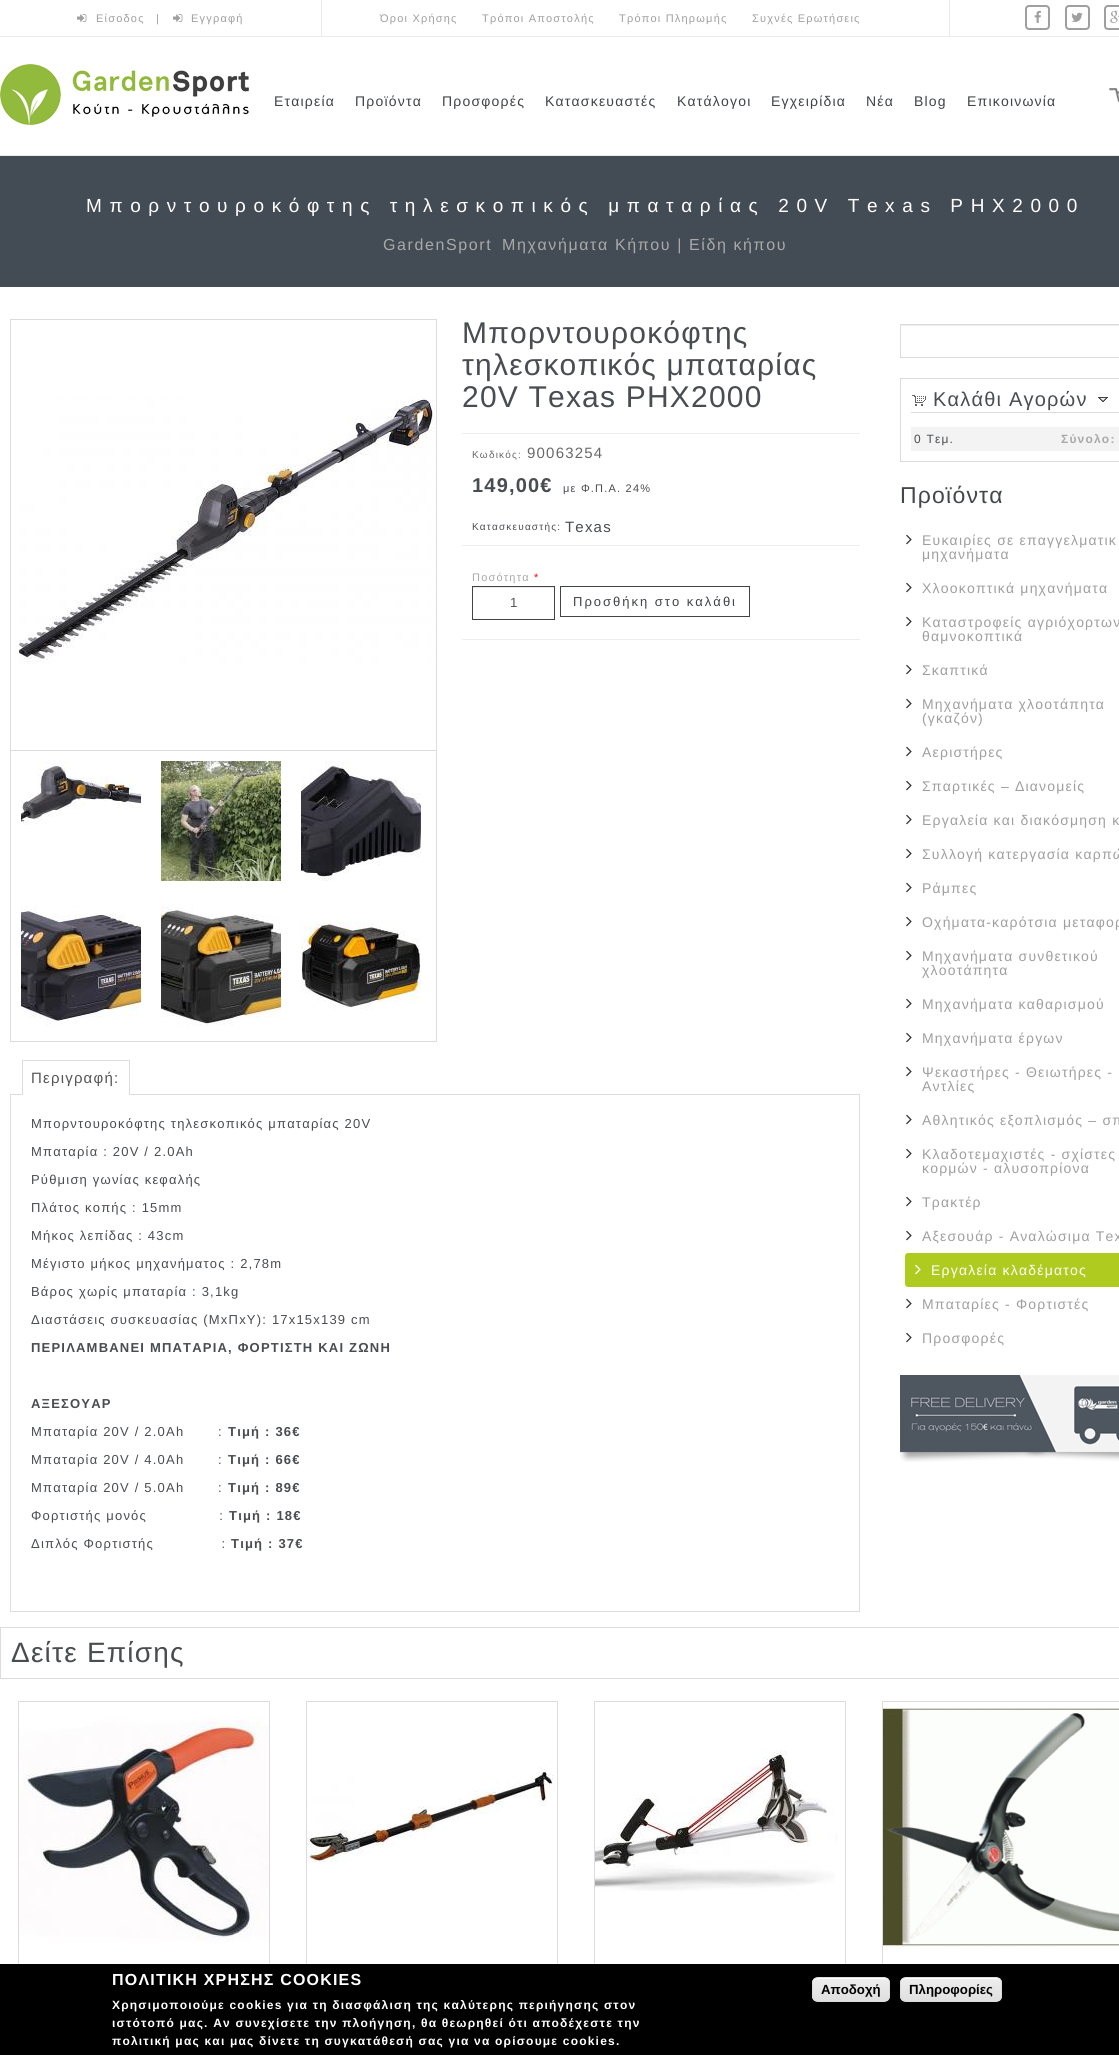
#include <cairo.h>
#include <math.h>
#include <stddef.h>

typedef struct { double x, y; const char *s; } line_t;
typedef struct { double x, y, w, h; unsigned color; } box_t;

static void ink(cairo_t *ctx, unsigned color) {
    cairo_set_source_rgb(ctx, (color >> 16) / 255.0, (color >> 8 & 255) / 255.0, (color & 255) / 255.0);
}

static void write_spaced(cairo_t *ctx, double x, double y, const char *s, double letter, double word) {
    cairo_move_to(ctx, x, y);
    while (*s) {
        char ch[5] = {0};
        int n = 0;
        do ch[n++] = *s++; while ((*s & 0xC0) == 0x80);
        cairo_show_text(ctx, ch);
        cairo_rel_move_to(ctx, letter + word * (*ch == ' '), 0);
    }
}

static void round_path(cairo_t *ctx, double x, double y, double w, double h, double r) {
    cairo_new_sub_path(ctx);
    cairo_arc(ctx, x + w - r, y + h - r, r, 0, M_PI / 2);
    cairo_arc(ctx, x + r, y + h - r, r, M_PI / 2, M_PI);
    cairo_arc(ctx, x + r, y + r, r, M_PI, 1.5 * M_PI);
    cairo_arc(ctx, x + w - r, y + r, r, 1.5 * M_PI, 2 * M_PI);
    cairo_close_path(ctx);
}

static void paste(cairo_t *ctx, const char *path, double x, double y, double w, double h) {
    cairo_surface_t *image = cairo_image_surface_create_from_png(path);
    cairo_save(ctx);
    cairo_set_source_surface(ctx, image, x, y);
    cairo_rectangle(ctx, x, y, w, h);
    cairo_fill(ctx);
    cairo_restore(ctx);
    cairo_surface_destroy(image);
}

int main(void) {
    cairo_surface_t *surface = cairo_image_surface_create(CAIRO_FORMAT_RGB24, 1119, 2055);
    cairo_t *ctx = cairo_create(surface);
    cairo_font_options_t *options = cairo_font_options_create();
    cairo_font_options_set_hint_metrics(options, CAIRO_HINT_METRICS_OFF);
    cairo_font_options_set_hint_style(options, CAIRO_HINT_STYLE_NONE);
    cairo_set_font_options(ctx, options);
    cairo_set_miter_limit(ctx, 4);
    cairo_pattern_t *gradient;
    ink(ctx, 0xFFFFFF);
    cairo_paint(ctx);
    ink(ctx, 0xEBEBEB);
    cairo_rectangle(ctx, 321, 0, 1, 36);
    cairo_fill(ctx);
    paste(ctx, "media/1.png", 77, 14, 10, 8);
    cairo_select_font_face(ctx, "Liberation Sans", CAIRO_FONT_SLANT_NORMAL, CAIRO_FONT_WEIGHT_NORMAL);
    cairo_set_font_size(ctx, 11);
    ink(ctx, 0x9F9F9F);
    write_spaced(ctx, 96, 22, "Είσοδος", 1.2, 0);
    write_spaced(ctx, 156, 22, "|", 1.2, 0);
    paste(ctx, "media/1.png", 173, 14, 10, 8);
    write_spaced(ctx, 191, 22, "Εγγραφή", 1.2, 0);
    ink(ctx, 0xEBEBEB);
    cairo_rectangle(ctx, 949, 0, 1, 36);
    cairo_fill(ctx);
    ink(ctx, 0x9F9F9F);
    {
        static const line_t items[] = {
            {380, 22, "Όροι Χρήσης"},
            {482, 22, "Τρόποι Αποστολής"},
            {619, 22, "Τρόποι Πληρωμής"},
            {752, 22, "Συχνές Ερωτήσεις"},
        };
        for (size_t i = 0; i < sizeof items / sizeof *items; i++) {
            write_spaced(ctx, items[i].x, items[i].y, items[i].s, 1.2, 0);
        }
    }
    round_path(ctx, 1026, 6, 23, 23, 3);
    cairo_stroke(ctx);
    paste(ctx, "media/2.png", 1034, 10, 7, 13);
    round_path(ctx, 1066, 6, 23, 23, 3);
    cairo_stroke(ctx);
    paste(ctx, "media/3.png", 1071, 12, 12, 10);
    round_path(ctx, 1105, 6, 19, 23, 3);
    cairo_stroke(ctx);
    paste(ctx, "media/4.png", 1110, 10, 9, 13);
    ink(ctx, 0xEBEBEB);
    cairo_rectangle(ctx, 0, 36, 1119, 1);
    cairo_fill(ctx);
    cairo_rectangle(ctx, 0, 155, 1119, 1);
    cairo_fill(ctx);
    paste(ctx, "media/5.png", 0, 64, 249, 61);
    cairo_set_font_size(ctx, 14);
    ink(ctx, 0x404347);
    {
        static const line_t items[] = {
            {274, 106, "Εταιρεία"},
            {355, 106, "Προϊόντα"},
            {442, 106, "Προσφορές"},
            {545, 106, "Κατασκευαστές"},
            {677, 106, "Κατάλογοι"},
            {771, 106, "Εγχειρίδια"},
            {866, 106, "Νέα"},
            {914, 106, "Blog"},
            {967, 106, "Επικοινωνία"},
        };
        for (size_t i = 0; i < sizeof items / sizeof *items; i++) {
            write_spaced(ctx, items[i].x, items[i].y, items[i].s, 1.2, 0);
        }
    }
    paste(ctx, "media/6.png", 1109, 88, 10, 15);
    ink(ctx, 0x434B55);
    cairo_rectangle(ctx, 0, 156, 1119, 131);
    cairo_fill(ctx);
    cairo_set_font_size(ctx, 19);
    ink(ctx, 0xFFFFFF);
    write_spaced(ctx, 86, 212, "Μπορντουροκόφτης τηλεσκοπικός μπαταρίας 20V Texas PHX2000", 7.6, 0);
    cairo_set_font_size(ctx, 16);
    ink(ctx, 0xA9A9A9);
    write_spaced(ctx, 383, 250, "GardenSport", 1.6, 0);
    write_spaced(ctx, 502, 250, "Μηχανήματα Κήπου | Είδη κήπου", 1.6, 0);
    cairo_set_font_size(ctx, 30);
    ink(ctx, 0x494C50);
    {
        static const line_t items[] = {
            {462, 343, "Μπορντουροκόφτης"},
            {462, 375, "τηλεσκοπικός μπαταρίας"},
            {462, 407, "20V Texas PHX2000"},
        };
        for (size_t i = 0; i < sizeof items / sizeof *items; i++) {
            write_spaced(ctx, items[i].x, items[i].y, items[i].s, 1.2, 0);
        }
    }
    cairo_rectangle(ctx, 10.5, 319.5, 426, 722);
    ink(ctx, 0xDCDCDC);
    cairo_set_line_width(ctx, 1);
    cairo_stroke(ctx);
    cairo_rectangle(ctx, 11, 750, 425, 1);
    cairo_fill(ctx);
    paste(ctx, "media/7.png", 19, 396, 416, 268);
    paste(ctx, "media/8.png", 21, 761, 120, 64);
    paste(ctx, "media/9.png", 161, 761, 120, 120);
    paste(ctx, "media/10.png", 301, 761, 120, 120);
    paste(ctx, "media/11.png", 21, 906, 120, 120);
    paste(ctx, "media/12.png", 161, 906, 120, 120);
    paste(ctx, "media/13.png", 301, 921, 120, 89);
    ink(ctx, 0xEEEEEE);
    cairo_rectangle(ctx, 462, 433, 398, 1);
    cairo_fill(ctx);
    cairo_set_font_size(ctx, 10);
    ink(ctx, 0x686868);
    write_spaced(ctx, 472, 458, "Κωδικός:", 1.2, 0);
    cairo_set_font_size(ctx, 15);
    write_spaced(ctx, 527, 458, "90063254", 1.2, 0);
    cairo_select_font_face(ctx, "Liberation Sans", CAIRO_FONT_SLANT_NORMAL, CAIRO_FONT_WEIGHT_BOLD);
    cairo_set_font_size(ctx, 20);
    ink(ctx, 0x494C50);
    write_spaced(ctx, 472, 492, "149,00€", 1.2, 0);
    cairo_select_font_face(ctx, "Liberation Sans", CAIRO_FONT_SLANT_NORMAL, CAIRO_FONT_WEIGHT_NORMAL);
    cairo_set_font_size(ctx, 11);
    write_spaced(ctx, 563, 492, "με Φ.Π.Α. 24%", 1.2, 0);
    ink(ctx, 0xEEEEEE);
    cairo_rectangle(ctx, 462, 545, 398, 1);
    cairo_fill(ctx);
    cairo_set_font_size(ctx, 10);
    ink(ctx, 0x494C50);
    write_spaced(ctx, 472, 530, "Κατασκευαστής:", 1.2, 0);
    cairo_set_font_size(ctx, 15);
    write_spaced(ctx, 565, 532, "Texas", 1.2, 0);
    ink(ctx, 0xEEEEEE);
    cairo_rectangle(ctx, 462, 639, 398, 1);
    cairo_fill(ctx);
    cairo_set_font_size(ctx, 11);
    ink(ctx, 0xA9A9A9);
    write_spaced(ctx, 472, 581, "Ποσότητα", 1.2, 0);
    ink(ctx, 0xFF0000);
    write_spaced(ctx, 534, 581, "*", 1.2, 0);
    ink(ctx, 0xECECEC);
    cairo_rectangle(ctx, 473, 587, 81, 1);
    cairo_fill(ctx);
    cairo_rectangle(ctx, 472.5, 586.5, 82, 33);
    ink(ctx, 0x404347);
    cairo_stroke(ctx);
    cairo_set_font_size(ctx, 13.25);
    ink(ctx, 0x555555);
    cairo_move_to(ctx, 510, 607);
    cairo_show_text(ctx, "1");
    cairo_rectangle(ctx, 560.5, 586.5, 189, 30);
    ink(ctx, 0x404347);
    cairo_stroke(ctx);
    cairo_set_font_size(ctx, 13);
    write_spaced(ctx, 573, 606, "Προσθήκη στο καλάθι", 2, 0);
    cairo_rectangle(ctx, 10.5, 1094.5, 849, 517);
    ink(ctx, 0xDDDDDD);
    cairo_stroke(ctx);
    {
        static const box_t items[] = {
            {23, 1094, 106, 1, 0xFFFFFF},
            {22, 1060, 108, 1, 0xDDDDDD},
            {129, 1060, 1, 35, 0xDDDDDD},
            {22, 1060, 1, 35, 0xDDDDDD},
        };
        for (size_t i = 0; i < sizeof items / sizeof *items; i++) {
            ink(ctx, items[i].color);
            cairo_rectangle(ctx, items[i].x, items[i].y, items[i].w, items[i].h);
            cairo_fill(ctx);
        }
    }
    cairo_set_font_size(ctx, 15);
    ink(ctx, 0x555555);
    write_spaced(ctx, 31, 1083, "Περιγραφή:", 1.2, 0);
    cairo_set_font_size(ctx, 13);
    ink(ctx, 0x494C50);
    {
        static const line_t items[] = {
            {31, 1128, "Μπορντουροκόφτης τηλεσκοπικός μπαταρίας 20V"},
            {31, 1156, "Μπαταρία : 20V / 2.0Ah"},
            {31, 1184, "Ρύθμιση γωνίας κεφαλής"},
            {31, 1212, "Πλάτος κοπής : 15mm"},
            {31, 1240, "Μήκος λεπίδας : 43cm"},
            {31, 1268, "Μέγιστο μήκος μηχανήματος : 2,78m"},
            {31, 1296, "Βάρος χωρίς μπαταρία : 3,1kg"},
            {31, 1324, "Διαστάσεις συσκευασίας (MxΠxY): 17x15x139 cm"},
        };
        for (size_t i = 0; i < sizeof items / sizeof *items; i++) {
            write_spaced(ctx, items[i].x, items[i].y, items[i].s, 1.2, 0);
        }
    }
    cairo_select_font_face(ctx, "Liberation Sans", CAIRO_FONT_SLANT_NORMAL, CAIRO_FONT_WEIGHT_BOLD);
    write_spaced(ctx, 31, 1352, "ΠΕΡΙΛΑΜΒΑΝΕΙ ΜΠΑΤΑΡΙΑ, ΦΟΡΤΙΣΤΗ ΚΑΙ ΖΩΝΗ", 1.2, 0);
    write_spaced(ctx, 31, 1408, "ΑΞΕΣΟΥΑΡ", 1.2, 0);
    cairo_select_font_face(ctx, "Liberation Sans", CAIRO_FONT_SLANT_NORMAL, CAIRO_FONT_WEIGHT_NORMAL);
    write_spaced(ctx, 31, 1436, "Μπαταρία 20V / 2.0Ah       :", 1.2, 0);
    cairo_select_font_face(ctx, "Liberation Sans", CAIRO_FONT_SLANT_NORMAL, CAIRO_FONT_WEIGHT_BOLD);
    write_spaced(ctx, 228, 1436, "Τιμή : 36€", 1.2, 0);
    cairo_select_font_face(ctx, "Liberation Sans", CAIRO_FONT_SLANT_NORMAL, CAIRO_FONT_WEIGHT_NORMAL);
    write_spaced(ctx, 31, 1464, "Μπαταρία 20V / 4.0Ah       :", 1.2, 0);
    cairo_select_font_face(ctx, "Liberation Sans", CAIRO_FONT_SLANT_NORMAL, CAIRO_FONT_WEIGHT_BOLD);
    write_spaced(ctx, 228, 1464, "Τιμή : 66€", 1.2, 0);
    cairo_select_font_face(ctx, "Liberation Sans", CAIRO_FONT_SLANT_NORMAL, CAIRO_FONT_WEIGHT_NORMAL);
    write_spaced(ctx, 31, 1492, "Μπαταρία 20V / 5.0Ah", 1.2, 0);
    write_spaced(ctx, 218, 1492, ":", 1.2, 0);
    cairo_select_font_face(ctx, "Liberation Sans", CAIRO_FONT_SLANT_NORMAL, CAIRO_FONT_WEIGHT_BOLD);
    write_spaced(ctx, 228, 1492, "Τιμή : 89€", 1.2, 0);
    cairo_select_font_face(ctx, "Liberation Sans", CAIRO_FONT_SLANT_NORMAL, CAIRO_FONT_WEIGHT_NORMAL);
    write_spaced(ctx, 31, 1520, "Φορτιστής μονός               :", 1.2, 0);
    cairo_select_font_face(ctx, "Liberation Sans", CAIRO_FONT_SLANT_NORMAL, CAIRO_FONT_WEIGHT_BOLD);
    write_spaced(ctx, 229, 1520, "Τιμή : 18€", 1.2, 0);
    cairo_select_font_face(ctx, "Liberation Sans", CAIRO_FONT_SLANT_NORMAL, CAIRO_FONT_WEIGHT_NORMAL);
    write_spaced(ctx, 31, 1548, "Διπλός Φορτιστής              :", 1.2, 0);
    cairo_select_font_face(ctx, "Liberation Sans", CAIRO_FONT_SLANT_NORMAL, CAIRO_FONT_WEIGHT_BOLD);
    write_spaced(ctx, 231, 1548, "Τιμή : 37€", 1.2, 0);
    ink(ctx, 0xECECEC);
    cairo_rectangle(ctx, 901, 325, 218, 1);
    cairo_fill(ctx);
    cairo_rectangle(ctx, 900.5, 324.5, 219, 33);
    ink(ctx, 0xDCDCDC);
    cairo_stroke(ctx);
    cairo_rectangle(ctx, 900.5, 378.5, 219, 83);
    cairo_stroke(ctx);
    cairo_rectangle(ctx, 911, 412, 208, 1);
    cairo_fill(ctx);
    paste(ctx, "media/14.png", 912, 395, 14, 11);
    cairo_select_font_face(ctx, "Liberation Sans", CAIRO_FONT_SLANT_NORMAL, CAIRO_FONT_WEIGHT_NORMAL);
    cairo_set_font_size(ctx, 20);
    ink(ctx, 0x494C50);
    write_spaced(ctx, 933, 406, "Καλάθι Αγορών", 1.2, 0);
    paste(ctx, "media/15.png", 1098, 397, 10, 5);
    ink(ctx, 0xF3F3F3);
    cairo_rectangle(ctx, 911, 427, 208, 24);
    cairo_fill(ctx);
    cairo_set_font_size(ctx, 12);
    ink(ctx, 0x494C50);
    write_spaced(ctx, 914, 443, "0 Τεμ.", 1.2, 0);
    cairo_select_font_face(ctx, "Liberation Sans", CAIRO_FONT_SLANT_NORMAL, CAIRO_FONT_WEIGHT_BOLD);
    ink(ctx, 0xA9A9A9);
    write_spaced(ctx, 1061, 443, "Σύνολο:", 1.2, 0);
    cairo_select_font_face(ctx, "Liberation Sans", CAIRO_FONT_SLANT_NORMAL, CAIRO_FONT_WEIGHT_NORMAL);
    cairo_set_font_size(ctx, 23);
    ink(ctx, 0x43474D);
    write_spaced(ctx, 900, 503, "Προϊόντα", 1.2, 0);
    paste(ctx, "media/16.png", 906, 534, 6, 11);
    cairo_set_font_size(ctx, 14);
    ink(ctx, 0x9F9F9F);
    write_spaced(ctx, 922, 545, "Ευκαιρίες σε επαγγελματικ", 1.2, 0);
    write_spaced(ctx, 922, 559, "μηχανήματα", 1.2, 0);
    paste(ctx, "media/16.png", 906, 582, 6, 11);
    write_spaced(ctx, 922, 593, "Χλοοκοπτικά μηχανήματα", 1.2, 0);
    paste(ctx, "media/16.png", 906, 616, 6, 11);
    write_spaced(ctx, 922, 627, "Καταστροφείς αγριόχορτων", 1.2, 0);
    write_spaced(ctx, 922, 641, "θαμνοκοπτικά", 1.2, 0);
    paste(ctx, "media/16.png", 906, 664, 6, 11);
    write_spaced(ctx, 922, 675, "Σκαπτικά", 1.2, 0);
    paste(ctx, "media/16.png", 906, 698, 6, 11);
    write_spaced(ctx, 922, 709, "Μηχανήματα χλοοτάπητα", 1.2, 0);
    write_spaced(ctx, 922, 723, "(γκαζόν)", 1.2, 0);
    paste(ctx, "media/16.png", 906, 746, 6, 11);
    write_spaced(ctx, 922, 757, "Αεριστήρες", 1.2, 0);
    paste(ctx, "media/16.png", 906, 780, 6, 11);
    write_spaced(ctx, 922, 791, "Σπαρτικές – Διανομείς", 1.2, 0);
    paste(ctx, "media/16.png", 906, 814, 6, 11);
    write_spaced(ctx, 922, 825, "Εργαλεία και διακόσμηση κ", 1.2, 0);
    paste(ctx, "media/16.png", 906, 848, 6, 11);
    write_spaced(ctx, 922, 859, "Συλλογή κατεργασία καρπώ", 1.2, 0);
    paste(ctx, "media/16.png", 906, 882, 6, 11);
    write_spaced(ctx, 922, 893, "Ράμπες", 1.2, 0);
    paste(ctx, "media/16.png", 906, 916, 6, 11);
    write_spaced(ctx, 922, 927, "Οχήματα-καρότσια μεταφορ", 1.2, 0);
    paste(ctx, "media/16.png", 906, 950, 6, 11);
    write_spaced(ctx, 922, 961, "Μηχανήματα συνθετικού", 1.2, 0);
    write_spaced(ctx, 922, 975, "χλοοτάπητα", 1.2, 0);
    paste(ctx, "media/16.png", 906, 998, 6, 11);
    write_spaced(ctx, 922, 1009, "Μηχανήματα καθαρισμού", 1.2, 0);
    paste(ctx, "media/16.png", 906, 1032, 6, 11);
    write_spaced(ctx, 922, 1043, "Μηχανήματα έργων", 1.2, 0);
    paste(ctx, "media/16.png", 906, 1066, 6, 11);
    write_spaced(ctx, 922, 1077, "Ψεκαστήρες - Θειωτήρες -", 1.2, 0);
    write_spaced(ctx, 922, 1091, "Αντλίες", 1.2, 0);
    paste(ctx, "media/16.png", 906, 1114, 6, 11);
    write_spaced(ctx, 922, 1125, "Αθλητικός εξοπλισμός – σπ", 1.2, 0);
    paste(ctx, "media/16.png", 906, 1148, 6, 11);
    write_spaced(ctx, 922, 1159, "Κλαδοτεμαχιστές - σχίστες", 1.2, 0);
    write_spaced(ctx, 922, 1173, "κορμών - αλυσοπρίονα", 1.2, 0);
    paste(ctx, "media/16.png", 906, 1196, 6, 11);
    write_spaced(ctx, 922, 1207, "Τρακτέρ", 1.2, 0);
    paste(ctx, "media/16.png", 906, 1230, 6, 11);
    write_spaced(ctx, 922, 1241, "Αξεσουάρ - Αναλώσιμα Tex", 1.2, 0);
    ink(ctx, 0xB0CB1F);
    round_path(ctx, 905, 1253, 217, 34, 3);
    cairo_fill(ctx);
    paste(ctx, "media/17.png", 915, 1264, 6, 11);
    ink(ctx, 0xFFFFFF);
    write_spaced(ctx, 931, 1275, "Εργαλεία κλαδέματος", 1.2, 0);
    paste(ctx, "media/16.png", 906, 1298, 6, 11);
    ink(ctx, 0x9F9F9F);
    write_spaced(ctx, 922, 1309, "Μπαταρίες - Φορτιστές", 1.2, 0);
    paste(ctx, "media/16.png", 906, 1332, 6, 11);
    write_spaced(ctx, 922, 1343, "Προσφορές", 1.2, 0);
    paste(ctx, "media/18.png", 900, 1375, 219, 87);
    cairo_rectangle(ctx, 0.5, 1627.5, 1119, 51);
    ink(ctx, 0xDCDCDC);
    cairo_stroke(ctx);
    cairo_set_font_size(ctx, 28);
    ink(ctx, 0x494C50);
    write_spaced(ctx, 11, 1662, "Δείτε Επίσης", 1.2, 0);
    {
        static const box_t items[] = {
            {18, 1701, 252, 1, 0xDCDCDC},
            {269, 1701, 1, 251, 0xDCDCDC},
            {18, 1701, 1, 251, 0xDCDCDC},
        };
        for (size_t i = 0; i < sizeof items / sizeof *items; i++) {
            ink(ctx, items[i].color);
            cairo_rectangle(ctx, items[i].x, items[i].y, items[i].w, items[i].h);
            cairo_fill(ctx);
        }
    }
    paste(ctx, "media/19.png", 19, 1718, 250, 224);
    {
        static const box_t items[] = {
            {269, 1952, 1, 12, 0xDCDCDC},
            {18, 1952, 1, 12, 0xDCDCDC},
            {306, 1701, 252, 1, 0xDCDCDC},
            {557, 1701, 1, 251, 0xDCDCDC},
            {306, 1701, 1, 251, 0xDCDCDC},
        };
        for (size_t i = 0; i < sizeof items / sizeof *items; i++) {
            ink(ctx, items[i].color);
            cairo_rectangle(ctx, items[i].x, items[i].y, items[i].w, items[i].h);
            cairo_fill(ctx);
        }
    }
    paste(ctx, "media/20.png", 307, 1767, 248, 96);
    {
        static const box_t items[] = {
            {557, 1952, 1, 12, 0xDCDCDC},
            {306, 1952, 1, 12, 0xDCDCDC},
            {594, 1701, 252, 1, 0xDCDCDC},
            {845, 1701, 1, 251, 0xDCDCDC},
            {594, 1701, 1, 251, 0xDCDCDC},
        };
        for (size_t i = 0; i < sizeof items / sizeof *items; i++) {
            ink(ctx, items[i].color);
            cairo_rectangle(ctx, items[i].x, items[i].y, items[i].w, items[i].h);
            cairo_fill(ctx);
        }
    }
    paste(ctx, "media/21.png", 595, 1750, 243, 141);
    {
        static const box_t items[] = {
            {845, 1952, 1, 12, 0xDCDCDC},
            {594, 1952, 1, 12, 0xDCDCDC},
            {882, 1701, 237, 1, 0xDCDCDC},
            {882, 1701, 1, 251, 0xDCDCDC},
        };
        for (size_t i = 0; i < sizeof items / sizeof *items; i++) {
            ink(ctx, items[i].color);
            cairo_rectangle(ctx, items[i].x, items[i].y, items[i].w, items[i].h);
            cairo_fill(ctx);
        }
    }
    paste(ctx, "media/22.png", 883, 1708, 236, 239);
    cairo_rectangle(ctx, 882, 1952, 1, 12);
    cairo_fill(ctx);
    ink(ctx, 0x000000);
    cairo_rectangle(ctx, 0, 1964, 1119, 91);
    cairo_fill(ctx);
    cairo_select_font_face(ctx, "Liberation Sans", CAIRO_FONT_SLANT_NORMAL, CAIRO_FONT_WEIGHT_BOLD);
    cairo_set_font_size(ctx, 16);
    ink(ctx, 0xFFFFFF);
    write_spaced(ctx, 112, 1985, "ΠΟΛΙΤΙΚΗ ΧΡΗΣΗΣ COOKIES", 1.2, 0);
    cairo_set_font_size(ctx, 12);
    {
        static const line_t items[] = {
            {112, 2009, "Χρησιμοποιούμε cookies για τη διασφάλιση της καλύτερης περιήγησης στον"},
            {112, 2027, "ιστότοπό μας. Αν συνεχίσετε την πλοήγηση, θα θεωρηθεί ότι αποδέχεστε την"},
            {112, 2045, "πολιτική μας και μας δίνετε τη συγκατάθεσή σας για να ορίσουμε cookies."},
        };
        for (size_t i = 0; i < sizeof items / sizeof *items; i++) {
            write_spaced(ctx, items[i].x, items[i].y, items[i].s, 1.2, 0);
        }
    }
    cairo_save(ctx);
    round_path(ctx, 812, 1977, 78, 25, 6);
    cairo_clip(ctx);
    gradient = cairo_pattern_create_linear(851, 1978, 851, 2001);
    cairo_pattern_add_color_stop_rgba(gradient, 0.05, 0.929, 0.929, 0.929, 1);
    cairo_pattern_add_color_stop_rgba(gradient, 1, 0.875, 0.875, 0.875, 1);
    cairo_set_source(ctx, gradient);
    cairo_pattern_destroy(gradient);
    cairo_rectangle(ctx, 812, 1978, 78, 23);
    cairo_fill(ctx);
    cairo_restore(ctx);
    cairo_new_path(ctx);
    cairo_move_to(ctx, 818, 1979);
    cairo_line_to(ctx, 884, 1979);
    cairo_curve_to(ctx, 887, 1979, 889, 1981, 889, 1984);
    cairo_curve_to(ctx, 889, 1975, 879, 1978, 873, 1978);
    cairo_line_to(ctx, 829, 1978);
    cairo_curve_to(ctx, 823, 1978, 813, 1975, 813, 1984);
    cairo_curve_to(ctx, 813, 1981, 815, 1979, 818, 1979);
    cairo_close_path(ctx);
    cairo_fill(ctx);
    round_path(ctx, 812.5, 1977.5, 77, 24, 5.5);
    ink(ctx, 0xDCDCDC);
    cairo_stroke(ctx);
    cairo_set_font_size(ctx, 13.25);
    ink(ctx, 0x000000);
    cairo_move_to(ctx, 821, 1994);
    cairo_show_text(ctx, "Αποδοχή");
    cairo_save(ctx);
    round_path(ctx, 900, 1977, 102, 25, 6);
    cairo_clip(ctx);
    gradient = cairo_pattern_create_linear(951, 1978, 951, 2001);
    cairo_pattern_add_color_stop_rgba(gradient, 0.05, 0.929, 0.929, 0.929, 1);
    cairo_pattern_add_color_stop_rgba(gradient, 1, 0.875, 0.875, 0.875, 1);
    cairo_set_source(ctx, gradient);
    cairo_pattern_destroy(gradient);
    cairo_rectangle(ctx, 900, 1978, 102, 23);
    cairo_fill(ctx);
    cairo_restore(ctx);
    ink(ctx, 0xFFFFFF);
    cairo_new_path(ctx);
    cairo_move_to(ctx, 906, 1979);
    cairo_line_to(ctx, 996, 1979);
    cairo_curve_to(ctx, 999, 1979, 1001, 1981, 1001, 1984);
    cairo_curve_to(ctx, 1001, 1974, 986, 1978, 981, 1978);
    cairo_line_to(ctx, 921, 1978);
    cairo_curve_to(ctx, 916, 1978, 901, 1974, 901, 1984);
    cairo_curve_to(ctx, 901, 1981, 903, 1979, 906, 1979);
    cairo_close_path(ctx);
    cairo_fill(ctx);
    round_path(ctx, 900.5, 1977.5, 101, 24, 5.5);
    ink(ctx, 0xDCDCDC);
    cairo_stroke(ctx);
    ink(ctx, 0x000000);
    cairo_move_to(ctx, 909, 1994);
    cairo_show_text(ctx, "Πληροφορίες");
    cairo_surface_write_to_png(surface, "image.png");
    cairo_font_options_destroy(options);
    cairo_destroy(ctx);
    cairo_surface_destroy(surface);
    return 0;
}
